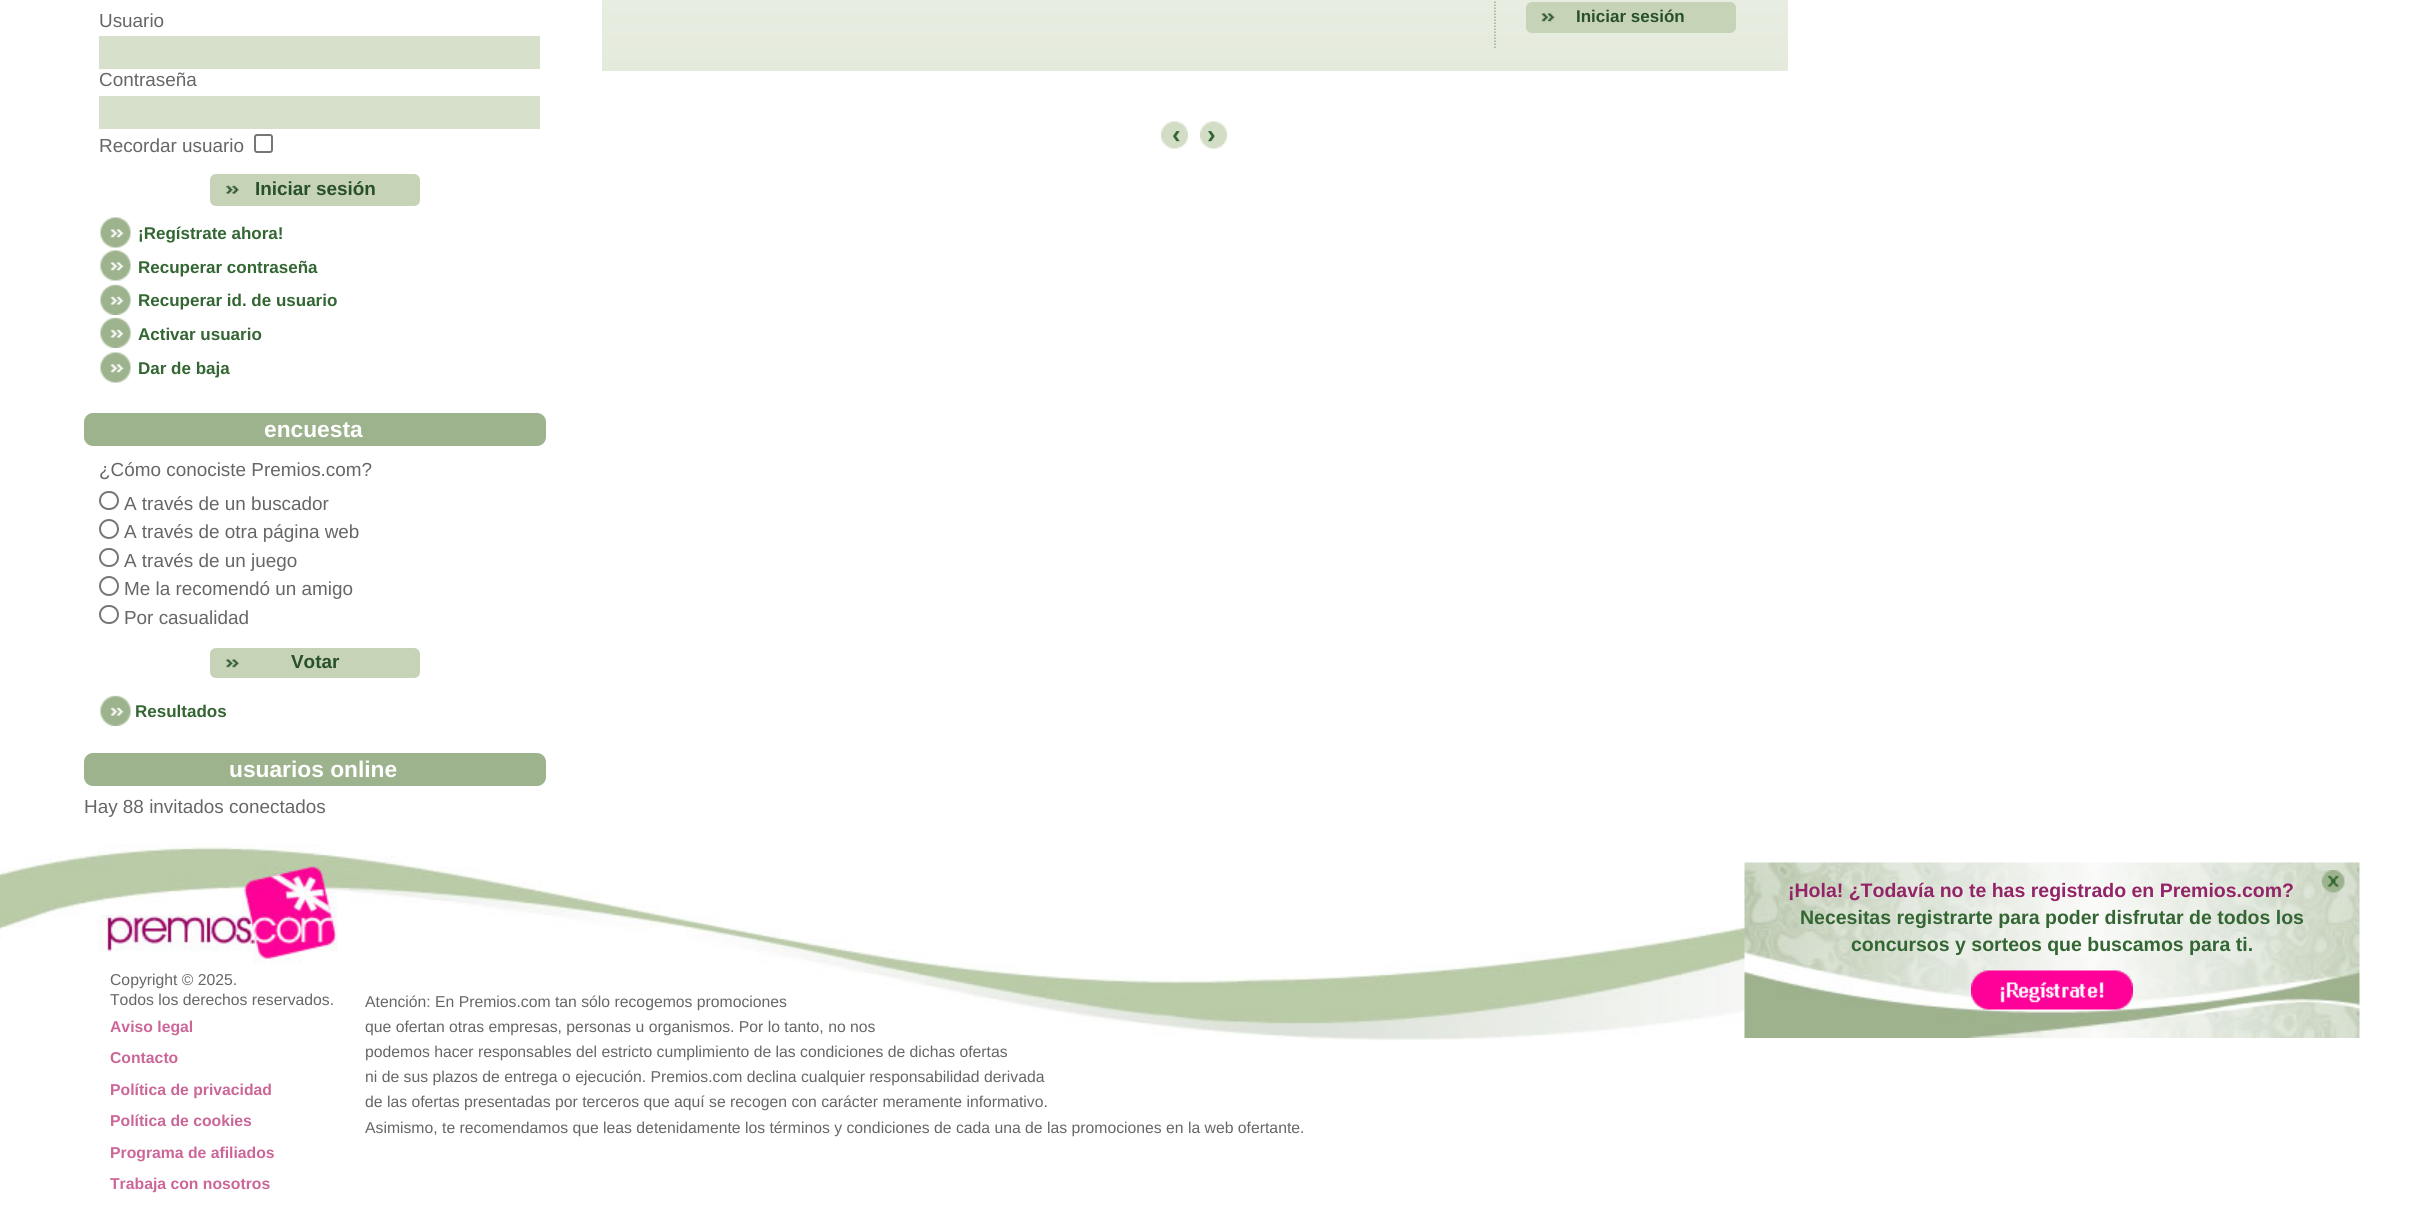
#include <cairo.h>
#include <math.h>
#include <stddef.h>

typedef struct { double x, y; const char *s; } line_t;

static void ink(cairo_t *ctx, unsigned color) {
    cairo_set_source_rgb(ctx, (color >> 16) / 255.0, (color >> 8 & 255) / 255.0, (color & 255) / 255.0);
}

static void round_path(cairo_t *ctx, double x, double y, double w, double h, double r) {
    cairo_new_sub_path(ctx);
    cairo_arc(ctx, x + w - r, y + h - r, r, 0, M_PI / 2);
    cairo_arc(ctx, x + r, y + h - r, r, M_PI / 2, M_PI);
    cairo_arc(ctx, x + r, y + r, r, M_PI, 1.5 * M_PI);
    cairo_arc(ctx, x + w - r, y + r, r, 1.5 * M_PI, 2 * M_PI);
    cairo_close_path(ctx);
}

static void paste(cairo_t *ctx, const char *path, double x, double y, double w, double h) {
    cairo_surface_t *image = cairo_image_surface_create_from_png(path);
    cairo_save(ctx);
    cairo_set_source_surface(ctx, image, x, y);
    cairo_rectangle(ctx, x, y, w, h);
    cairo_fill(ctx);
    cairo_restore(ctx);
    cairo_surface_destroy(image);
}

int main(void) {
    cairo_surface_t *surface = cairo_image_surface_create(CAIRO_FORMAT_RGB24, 2434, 1231);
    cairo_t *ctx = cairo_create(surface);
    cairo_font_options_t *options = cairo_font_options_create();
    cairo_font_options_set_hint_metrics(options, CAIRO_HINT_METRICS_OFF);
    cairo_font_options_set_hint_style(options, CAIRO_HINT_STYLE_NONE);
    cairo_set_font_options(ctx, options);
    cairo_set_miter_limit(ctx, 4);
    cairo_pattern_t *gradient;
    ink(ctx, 0xFFFFFF);
    cairo_paint(ctx);
    cairo_select_font_face(ctx, "Liberation Sans", CAIRO_FONT_SLANT_NORMAL, CAIRO_FONT_WEIGHT_NORMAL);
    cairo_set_font_size(ctx, 18.9);
    ink(ctx, 0x666666);
    cairo_move_to(ctx, 99, 27);
    cairo_show_text(ctx, "Usuario");
    ink(ctx, 0xD6E0CB);
    cairo_rectangle(ctx, 99, 36, 441, 33);
    cairo_fill(ctx);
    ink(ctx, 0x666666);
    cairo_move_to(ctx, 99, 86);
    cairo_show_text(ctx, "Contraseña");
    ink(ctx, 0xD6E0CB);
    cairo_rectangle(ctx, 99, 96, 441, 33);
    cairo_fill(ctx);
    ink(ctx, 0x666666);
    cairo_move_to(ctx, 99, 152);
    cairo_show_text(ctx, "Recordar usuario");
    round_path(ctx, 255, 135, 17, 17, 2);
    ink(ctx, 0x767676);
    cairo_stroke(ctx);
    ink(ctx, 0xC6D3B6);
    round_path(ctx, 210, 174, 210, 32, 6);
    cairo_fill(ctx);
    paste(ctx, "media/1.png", 226, 185, 13, 9);
    cairo_select_font_face(ctx, "Liberation Sans", CAIRO_FONT_SLANT_NORMAL, CAIRO_FONT_WEIGHT_BOLD);
    ink(ctx, 0x285128);
    cairo_move_to(ctx, 255, 195);
    cairo_show_text(ctx, "Iniciar sesión");
    paste(ctx, "media/2.png", 100, 217, 31, 31);
    cairo_set_font_size(ctx, 17);
    ink(ctx, 0x336633);
    cairo_move_to(ctx, 138, 239);
    cairo_show_text(ctx, "¡Regístrate ahora!");
    paste(ctx, "media/2.png", 100, 250, 31, 31);
    cairo_move_to(ctx, 138, 273);
    cairo_show_text(ctx, "Recuperar contraseña");
    paste(ctx, "media/3.png", 100, 284, 31, 31);
    cairo_move_to(ctx, 138, 306);
    cairo_show_text(ctx, "Recuperar id. de usuario");
    paste(ctx, "media/3.png", 100, 317, 31, 31);
    cairo_move_to(ctx, 138, 340);
    cairo_show_text(ctx, "Activar usuario");
    paste(ctx, "media/2.png", 100, 352, 31, 31);
    cairo_move_to(ctx, 138, 374);
    cairo_show_text(ctx, "Dar de baja");
    ink(ctx, 0x9DB38D);
    round_path(ctx, 84, 413, 462, 33, 9);
    cairo_fill(ctx);
    cairo_set_font_size(ctx, 22.75);
    ink(ctx, 0xFFFFFF);
    cairo_move_to(ctx, 264, 437);
    cairo_show_text(ctx, "encuesta");
    cairo_select_font_face(ctx, "Liberation Sans", CAIRO_FONT_SLANT_NORMAL, CAIRO_FONT_WEIGHT_NORMAL);
    cairo_set_font_size(ctx, 18.9);
    ink(ctx, 0x666666);
    cairo_move_to(ctx, 99, 476);
    cairo_show_text(ctx, "¿Cómo conociste Premios.com?");
    round_path(ctx, 100, 492, 18, 17, 8.5);
    ink(ctx, 0x767676);
    cairo_stroke(ctx);
    ink(ctx, 0x666666);
    cairo_move_to(ctx, 124, 510);
    cairo_show_text(ctx, "A través de un buscador");
    cairo_new_path(ctx);
    cairo_arc(ctx, 109, 529, 9, 0, 2 * M_PI);
    ink(ctx, 0x767676);
    cairo_stroke(ctx);
    ink(ctx, 0x666666);
    cairo_move_to(ctx, 124, 538);
    cairo_show_text(ctx, "A través de otra página web");
    round_path(ctx, 100, 549, 18, 17, 8.5);
    ink(ctx, 0x767676);
    cairo_stroke(ctx);
    ink(ctx, 0x666666);
    cairo_move_to(ctx, 124, 567);
    cairo_show_text(ctx, "A través de un juego");
    cairo_new_path(ctx);
    cairo_arc(ctx, 109, 586, 9, 0, 2 * M_PI);
    ink(ctx, 0x767676);
    cairo_stroke(ctx);
    ink(ctx, 0x666666);
    cairo_move_to(ctx, 124, 595);
    cairo_show_text(ctx, "Me la recomendó un amigo");
    round_path(ctx, 100, 606, 18, 17, 8.5);
    ink(ctx, 0x767676);
    cairo_stroke(ctx);
    ink(ctx, 0x666666);
    cairo_move_to(ctx, 124, 624);
    cairo_show_text(ctx, "Por casualidad");
    ink(ctx, 0xC6D3B6);
    round_path(ctx, 210, 648, 210, 30, 6);
    cairo_fill(ctx);
    paste(ctx, "media/4.png", 226, 659, 13, 9);
    cairo_select_font_face(ctx, "Liberation Sans", CAIRO_FONT_SLANT_NORMAL, CAIRO_FONT_WEIGHT_BOLD);
    ink(ctx, 0x285128);
    cairo_move_to(ctx, 291, 668);
    cairo_show_text(ctx, "Votar");
    paste(ctx, "media/3.png", 100, 695, 31, 31);
    cairo_set_font_size(ctx, 17);
    ink(ctx, 0x336633);
    cairo_move_to(ctx, 135, 717);
    cairo_show_text(ctx, "Resultados");
    ink(ctx, 0x9DB38D);
    round_path(ctx, 84, 753, 462, 33, 9);
    cairo_fill(ctx);
    cairo_set_font_size(ctx, 22.75);
    ink(ctx, 0xFFFFFF);
    cairo_move_to(ctx, 229, 777);
    cairo_show_text(ctx, "usuarios online");
    cairo_select_font_face(ctx, "Liberation Sans", CAIRO_FONT_SLANT_NORMAL, CAIRO_FONT_WEIGHT_NORMAL);
    cairo_set_font_size(ctx, 18.9);
    ink(ctx, 0x666666);
    cairo_move_to(ctx, 84, 813);
    cairo_show_text(ctx, "Hay 88 invitados conectados");
    gradient = cairo_pattern_create_linear(1195, -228, 1195, 71);
    cairo_pattern_add_color_stop_rgba(gradient, 0, 0.957, 0.965, 0.945, 1);
    cairo_pattern_add_color_stop_rgba(gradient, 1, 0.894, 0.918, 0.863, 1);
    cairo_set_source(ctx, gradient);
    cairo_pattern_destroy(gradient);
    cairo_rectangle(ctx, 602, 0, 1186, 71);
    cairo_fill(ctx);
    cairo_new_path(ctx);
    cairo_move_to(ctx, 1495, -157.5);
    cairo_line_to(ctx, 1495, 48);
    ink(ctx, 0x9DB38D);
    cairo_set_line_width(ctx, 1.5);
    cairo_set_dash(ctx, (double[]){1.5, 1.5}, 2, 0);
    cairo_stroke(ctx);
    ink(ctx, 0xC6D3B6);
    round_path(ctx, 1526, 2, 210, 31, 6);
    cairo_fill(ctx);
    paste(ctx, "media/5.png", 1541, 13, 14, 9);
    cairo_select_font_face(ctx, "Liberation Sans", CAIRO_FONT_SLANT_NORMAL, CAIRO_FONT_WEIGHT_BOLD);
    cairo_set_font_size(ctx, 17);
    ink(ctx, 0x285128);
    cairo_move_to(ctx, 1576, 22);
    cairo_show_text(ctx, "Iniciar sesión");
    paste(ctx, "media/6.png", 1161, 121, 27, 28);
    cairo_set_font_size(ctx, 26);
    ink(ctx, 0x336633);
    cairo_move_to(ctx, 1172, 143);
    cairo_show_text(ctx, "‹");
    paste(ctx, "media/6.png", 1200, 121, 27, 28);
    cairo_move_to(ctx, 1207, 143);
    cairo_show_text(ctx, "›");
    paste(ctx, "media/10.png", 0, 844, 1962, 197);
    paste(ctx, "media/7.png", 1744, 862, 616, 176);
    cairo_set_font_size(ctx, 19.5);
    ink(ctx, 0x932467);
    cairo_move_to(ctx, 1788, 897);
    cairo_show_text(ctx, "¡Hola! ¿Todavía no te has registrado en Premios.com?");
    ink(ctx, 0x336633);
    cairo_move_to(ctx, 1800, 924);
    cairo_show_text(ctx, "Necesitas registrarte para poder disfrutar de todos los");
    cairo_move_to(ctx, 1851, 951);
    cairo_show_text(ctx, "concursos y sorteos que buscamos para ti.");
    paste(ctx, "media/8.png", 1971, 970, 162, 40);
    paste(ctx, "media/9.png", 2322, 870, 23, 23);
    cairo_select_font_face(ctx, "Liberation Sans", CAIRO_FONT_SLANT_NORMAL, CAIRO_FONT_WEIGHT_NORMAL);
    cairo_set_font_size(ctx, 15.75);
    ink(ctx, 0x666666);
    cairo_move_to(ctx, 110, 985);
    cairo_show_text(ctx, "Copyright © 2025.");
    cairo_move_to(ctx, 110, 1005);
    cairo_show_text(ctx, "Todos los derechos reservados.");
    cairo_select_font_face(ctx, "Liberation Sans", CAIRO_FONT_SLANT_NORMAL, CAIRO_FONT_WEIGHT_BOLD);
    ink(ctx, 0xCC6699);
    {
        static const line_t items[] = {
            {110, 1032, "Aviso legal"},
            {110, 1063, "Contacto"},
            {110, 1095, "Política de privacidad"},
            {110, 1126, "Política de cookies"},
            {110, 1158, "Programa de afiliados"},
            {110, 1189, "Trabaja con nosotros"},
        };
        for (size_t i = 0; i < sizeof items / sizeof *items; i++) {
            cairo_move_to(ctx, items[i].x, items[i].y);
            cairo_show_text(ctx, items[i].s);
        }
    }
    cairo_select_font_face(ctx, "Liberation Sans", CAIRO_FONT_SLANT_NORMAL, CAIRO_FONT_WEIGHT_NORMAL);
    ink(ctx, 0x666666);
    {
        static const line_t items[] = {
            {365, 1007, "Atención: En Premios.com tan sólo recogemos promociones"},
            {365, 1032, "que ofertan otras empresas, personas u organismos. Por lo tanto, no nos"},
            {365, 1057, "podemos hacer responsables del estricto cumplimiento de las condiciones de dichas ofertas"},
            {365, 1082, "ni de sus plazos de entrega o ejecución. Premios.com declina cualquier responsabilidad derivada"},
            {365, 1107, "de las ofertas presentadas por terceros que aquí se recogen con carácter meramente informativo."},
            {365, 1133, "Asimismo, te recomendamos que leas detenidamente los términos y condiciones de cada una de las promociones en la web ofertante."},
        };
        for (size_t i = 0; i < sizeof items / sizeof *items; i++) {
            cairo_move_to(ctx, items[i].x, items[i].y);
            cairo_show_text(ctx, items[i].s);
        }
    }
    cairo_surface_write_to_png(surface, "image.png");
    cairo_font_options_destroy(options);
    cairo_destroy(ctx);
    cairo_surface_destroy(surface);
    return 0;
}
